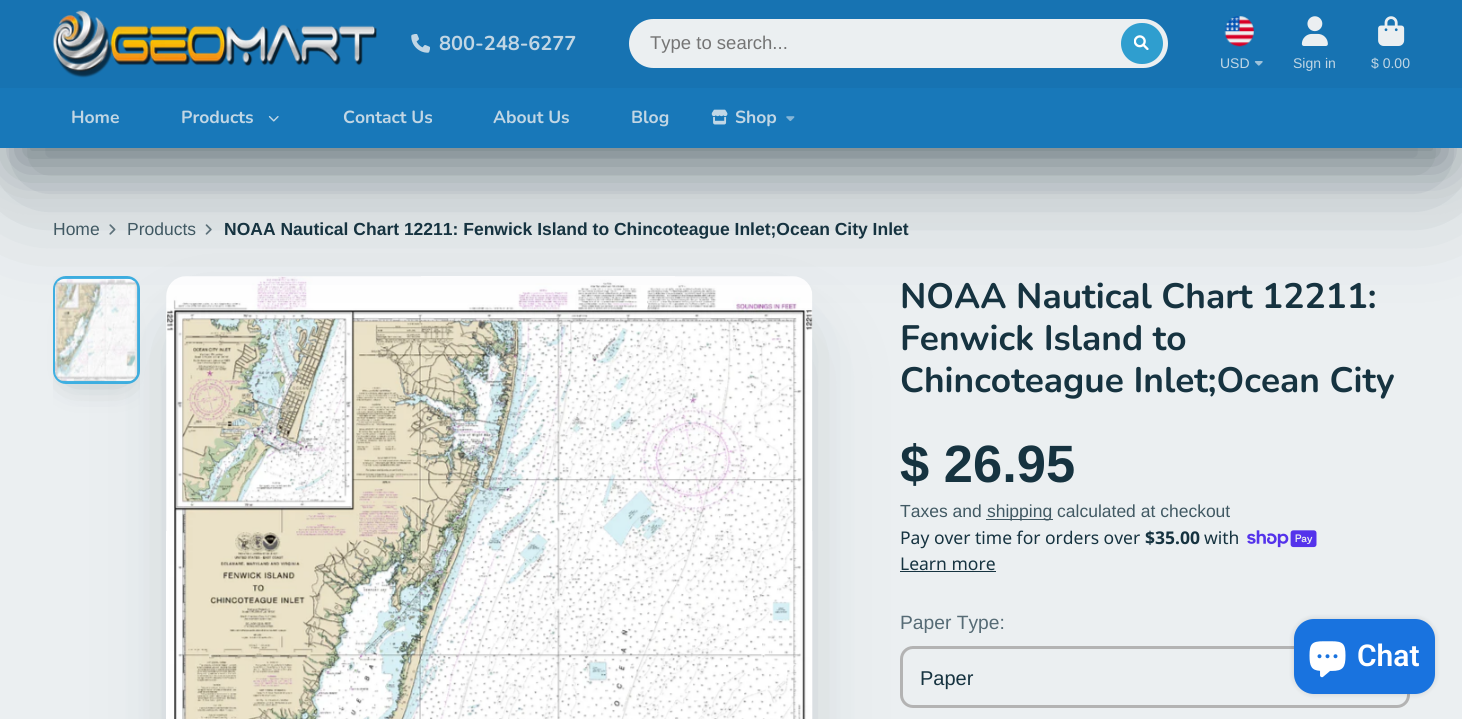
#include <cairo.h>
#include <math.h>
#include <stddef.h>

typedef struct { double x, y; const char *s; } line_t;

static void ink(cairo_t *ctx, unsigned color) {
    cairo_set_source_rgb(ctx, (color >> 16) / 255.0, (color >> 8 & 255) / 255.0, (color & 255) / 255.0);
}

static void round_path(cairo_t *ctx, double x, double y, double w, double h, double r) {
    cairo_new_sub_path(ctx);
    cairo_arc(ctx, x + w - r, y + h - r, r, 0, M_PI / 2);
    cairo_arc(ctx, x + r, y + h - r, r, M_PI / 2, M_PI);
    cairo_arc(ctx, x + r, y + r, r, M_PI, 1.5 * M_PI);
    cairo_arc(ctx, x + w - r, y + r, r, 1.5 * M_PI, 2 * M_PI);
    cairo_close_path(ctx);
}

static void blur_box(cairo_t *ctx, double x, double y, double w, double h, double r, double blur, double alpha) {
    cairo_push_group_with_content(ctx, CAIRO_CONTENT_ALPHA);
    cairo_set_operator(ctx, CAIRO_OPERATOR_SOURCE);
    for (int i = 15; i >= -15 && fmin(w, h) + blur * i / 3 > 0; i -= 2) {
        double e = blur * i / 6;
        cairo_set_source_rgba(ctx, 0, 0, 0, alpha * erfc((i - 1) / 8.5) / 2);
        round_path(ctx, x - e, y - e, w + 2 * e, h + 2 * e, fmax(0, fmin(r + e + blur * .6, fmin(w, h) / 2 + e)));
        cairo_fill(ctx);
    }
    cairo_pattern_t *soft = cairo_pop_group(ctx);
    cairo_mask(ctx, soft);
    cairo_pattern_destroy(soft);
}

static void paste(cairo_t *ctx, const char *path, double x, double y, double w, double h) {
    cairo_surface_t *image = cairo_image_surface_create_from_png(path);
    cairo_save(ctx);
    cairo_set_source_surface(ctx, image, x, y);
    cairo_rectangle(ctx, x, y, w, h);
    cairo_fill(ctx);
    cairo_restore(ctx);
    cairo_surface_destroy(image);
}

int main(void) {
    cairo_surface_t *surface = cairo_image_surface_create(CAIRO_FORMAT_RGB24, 1462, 719);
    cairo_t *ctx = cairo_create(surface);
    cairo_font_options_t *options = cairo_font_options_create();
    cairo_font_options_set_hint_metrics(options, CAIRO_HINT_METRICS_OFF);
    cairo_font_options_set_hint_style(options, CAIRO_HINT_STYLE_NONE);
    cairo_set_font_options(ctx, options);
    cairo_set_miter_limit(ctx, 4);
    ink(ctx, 0xEBEFF1);
    cairo_paint(ctx);
    paste(ctx, "media/11.png", 109, 224, 7, 11);
    paste(ctx, "media/12.png", 205, 224, 7, 11);
    ink(ctx, 0x0F242D);
    blur_box(ctx, 18, 50, 1427, 113, 0, 24, 0.4);
    cairo_save(ctx);
    cairo_rectangle(ctx, 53, 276, 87, 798);
    cairo_clip(ctx);
    blur_box(ctx, 70, 303, 53, 72, 0, 17.5, 0.3);
    cairo_restore(ctx);
    blur_box(ctx, 79, 320, 35, 55, 0, 17.5, 0.1);
    round_path(ctx, 54.5, 277.5, 84, 105, 11.5);
    ink(ctx, 0x3EAFE1);
    cairo_set_line_width(ctx, 3);
    cairo_stroke(ctx);
    paste(ctx, "media/14.png", 55, 278, 83, 104);
    ink(ctx, 0x0F242D);
    blur_box(ctx, 199, 343, 581, 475, 0, 33, 0.3);
    blur_box(ctx, 189, 353, 602, 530, 0, 54.5, 0.1);
    paste(ctx, "media/13.png", 166, 276, 647, 443);
    blur_box(ctx, 18, 73, 1427, 112, 0, 54.5, 0.3);
    ink(ctx, 0x1773B2);
    cairo_rectangle(ctx, 0, 0, 1462, 88);
    cairo_fill(ctx);
    paste(ctx, "media/1.png", 52, 10, 325, 68);
    paste(ctx, "media/2.png", 411, 34, 19, 19);
    cairo_select_font_face(ctx, "Nunito", CAIRO_FONT_SLANT_NORMAL, CAIRO_FONT_WEIGHT_BOLD);
    cairo_set_font_size(ctx, 20);
    ink(ctx, 0xC1D6E4);
    cairo_move_to(ctx, 439, 50);
    cairo_show_text(ctx, "800-248-6277");
    ink(ctx, 0xEBEFF1);
    round_path(ctx, 629, 19, 539, 49, 24.5);
    cairo_fill(ctx);
    cairo_select_font_face(ctx, "Liberation Sans", CAIRO_FONT_SLANT_NORMAL, CAIRO_FONT_WEIGHT_NORMAL);
    cairo_set_font_size(ctx, 18.5);
    ink(ctx, 0x757575);
    cairo_move_to(ctx, 650, 49);
    cairo_show_text(ctx, "Type to search...");
    ink(ctx, 0x2F9ECF);
    round_path(ctx, 1121, 23, 42, 41, 20.5);
    cairo_fill(ctx);
    paste(ctx, "media/3.png", 1134, 35, 15, 15);
    paste(ctx, "media/4.png", 1224, 16, 30, 31);
    cairo_set_font_size(ctx, 14);
    ink(ctx, 0xC1D6E4);
    cairo_move_to(ctx, 1220, 68);
    cairo_show_text(ctx, "USD");
    paste(ctx, "media/5.png", 1254, 61, 9, 5);
    paste(ctx, "media/6.png", 1301, 16, 27, 30);
    cairo_move_to(ctx, 1293, 68);
    cairo_show_text(ctx, "Sign in");
    paste(ctx, "media/7.png", 1378, 16, 27, 30);
    cairo_move_to(ctx, 1371, 68);
    cairo_show_text(ctx, "$ 0.00");
    ink(ctx, 0x1878B9);
    cairo_rectangle(ctx, 0, 88, 1462, 60);
    cairo_fill(ctx);
    cairo_select_font_face(ctx, "Nunito", CAIRO_FONT_SLANT_NORMAL, CAIRO_FONT_WEIGHT_BOLD);
    cairo_set_font_size(ctx, 17.5);
    ink(ctx, 0xC1D6E4);
    cairo_move_to(ctx, 71, 123);
    cairo_show_text(ctx, "Home");
    cairo_move_to(ctx, 181, 123);
    cairo_show_text(ctx, "Products");
    paste(ctx, "media/8.png", 268, 116, 11, 6);
    {
        static const line_t items[] = {
            {343, 123, "Contact Us"},
            {493, 123, "About Us"},
            {631, 123, "Blog"},
        };
        for (size_t i = 0; i < sizeof items / sizeof *items; i++) {
            cairo_move_to(ctx, items[i].x, items[i].y);
            cairo_show_text(ctx, items[i].s);
        }
    }
    paste(ctx, "media/9.png", 711, 109, 17, 16);
    cairo_move_to(ctx, 735, 123);
    cairo_show_text(ctx, "Shop");
    paste(ctx, "media/10.png", 786, 116, 9, 5);
    cairo_select_font_face(ctx, "Liberation Sans", CAIRO_FONT_SLANT_NORMAL, CAIRO_FONT_WEIGHT_NORMAL);
    ink(ctx, 0x415963);
    cairo_move_to(ctx, 53, 235);
    cairo_show_text(ctx, "Home");
    cairo_move_to(ctx, 127, 235);
    cairo_show_text(ctx, "Products");
    cairo_select_font_face(ctx, "Liberation Sans", CAIRO_FONT_SLANT_NORMAL, CAIRO_FONT_WEIGHT_BOLD);
    ink(ctx, 0x163340);
    cairo_move_to(ctx, 224, 235);
    cairo_show_text(ctx, "NOAA Nautical Chart 12211: Fenwick Island to Chincoteague Inlet;Ocean City Inlet");
    cairo_select_font_face(ctx, "Nunito", CAIRO_FONT_SLANT_NORMAL, CAIRO_FONT_WEIGHT_BOLD);
    cairo_set_font_size(ctx, 35.25);
    {
        static const line_t items[] = {
            {900, 308, "NOAA Nautical Chart 12211:"},
            {900, 350, "Fenwick Island to"},
            {900, 392, "Chincoteague Inlet;Ocean City"},
        };
        for (size_t i = 0; i < sizeof items / sizeof *items; i++) {
            cairo_move_to(ctx, items[i].x, items[i].y);
            cairo_show_text(ctx, items[i].s);
        }
    }
    cairo_select_font_face(ctx, "Liberation Sans", CAIRO_FONT_SLANT_NORMAL, CAIRO_FONT_WEIGHT_BOLD);
    cairo_set_font_size(ctx, 52.5);
    cairo_move_to(ctx, 900, 482);
    cairo_show_text(ctx, "$ 26.95");
    cairo_select_font_face(ctx, "Liberation Sans", CAIRO_FONT_SLANT_NORMAL, CAIRO_FONT_WEIGHT_NORMAL);
    cairo_set_font_size(ctx, 17.5);
    ink(ctx, 0x415963);
    cairo_move_to(ctx, 900, 517);
    cairo_show_text(ctx, "Taxes and");
    cairo_rectangle(ctx, 986, 519, 67, 1);
    cairo_fill(ctx);
    cairo_move_to(ctx, 987, 517);
    cairo_show_text(ctx, "shipping calculated at checkout");
    cairo_select_font_face(ctx, "Noto Sans", CAIRO_FONT_SLANT_NORMAL, CAIRO_FONT_WEIGHT_NORMAL);
    ink(ctx, 0x163340);
    cairo_move_to(ctx, 900, 544);
    cairo_show_text(ctx, "Pay over time for orders over");
    cairo_select_font_face(ctx, "Noto Sans", CAIRO_FONT_SLANT_NORMAL, CAIRO_FONT_WEIGHT_BOLD);
    cairo_move_to(ctx, 1145, 544);
    cairo_show_text(ctx, "$35.00");
    cairo_select_font_face(ctx, "Noto Sans", CAIRO_FONT_SLANT_NORMAL, CAIRO_FONT_WEIGHT_NORMAL);
    cairo_move_to(ctx, 1204, 544);
    cairo_show_text(ctx, "with");
    paste(ctx, "media/15.png", 1247, 530, 70, 18);
    cairo_move_to(ctx, 900, 570);
    cairo_show_text(ctx, "Learn more");
    cairo_rectangle(ctx, 900, 571, 96, 1);
    cairo_fill(ctx);
    cairo_select_font_face(ctx, "Liberation Sans", CAIRO_FONT_SLANT_NORMAL, CAIRO_FONT_WEIGHT_NORMAL);
    cairo_set_font_size(ctx, 19.25);
    ink(ctx, 0x566B75);
    cairo_move_to(ctx, 900, 629);
    cairo_show_text(ctx, "Paper Type:");
    round_path(ctx, 901.5, 647.5, 507, 59, 11.5);
    ink(ctx, 0xB3B3B3);
    cairo_stroke(ctx);
    cairo_set_font_size(ctx, 20);
    ink(ctx, 0x163340);
    cairo_move_to(ctx, 920, 685);
    cairo_show_text(ctx, "Paper");
    ink(ctx, 0x000000);
    blur_box(ctx, 1294, 619, 141, 75, 20, 3, 0.15);
    ink(ctx, 0x1973DF);
    round_path(ctx, 1294, 619, 141, 75, 20);
    cairo_fill(ctx);
    paste(ctx, "media/16.png", 1309, 641, 37, 37);
    cairo_select_font_face(ctx, "Roboto SemiBold", CAIRO_FONT_SLANT_NORMAL, CAIRO_FONT_WEIGHT_NORMAL);
    cairo_set_font_size(ctx, 30);
    ink(ctx, 0xFFFFFF);
    cairo_move_to(ctx, 1357, 666);
    cairo_show_text(ctx, "Chat");
    cairo_surface_write_to_png(surface, "image.png");
    cairo_font_options_destroy(options);
    cairo_destroy(ctx);
    cairo_surface_destroy(surface);
    return 0;
}
